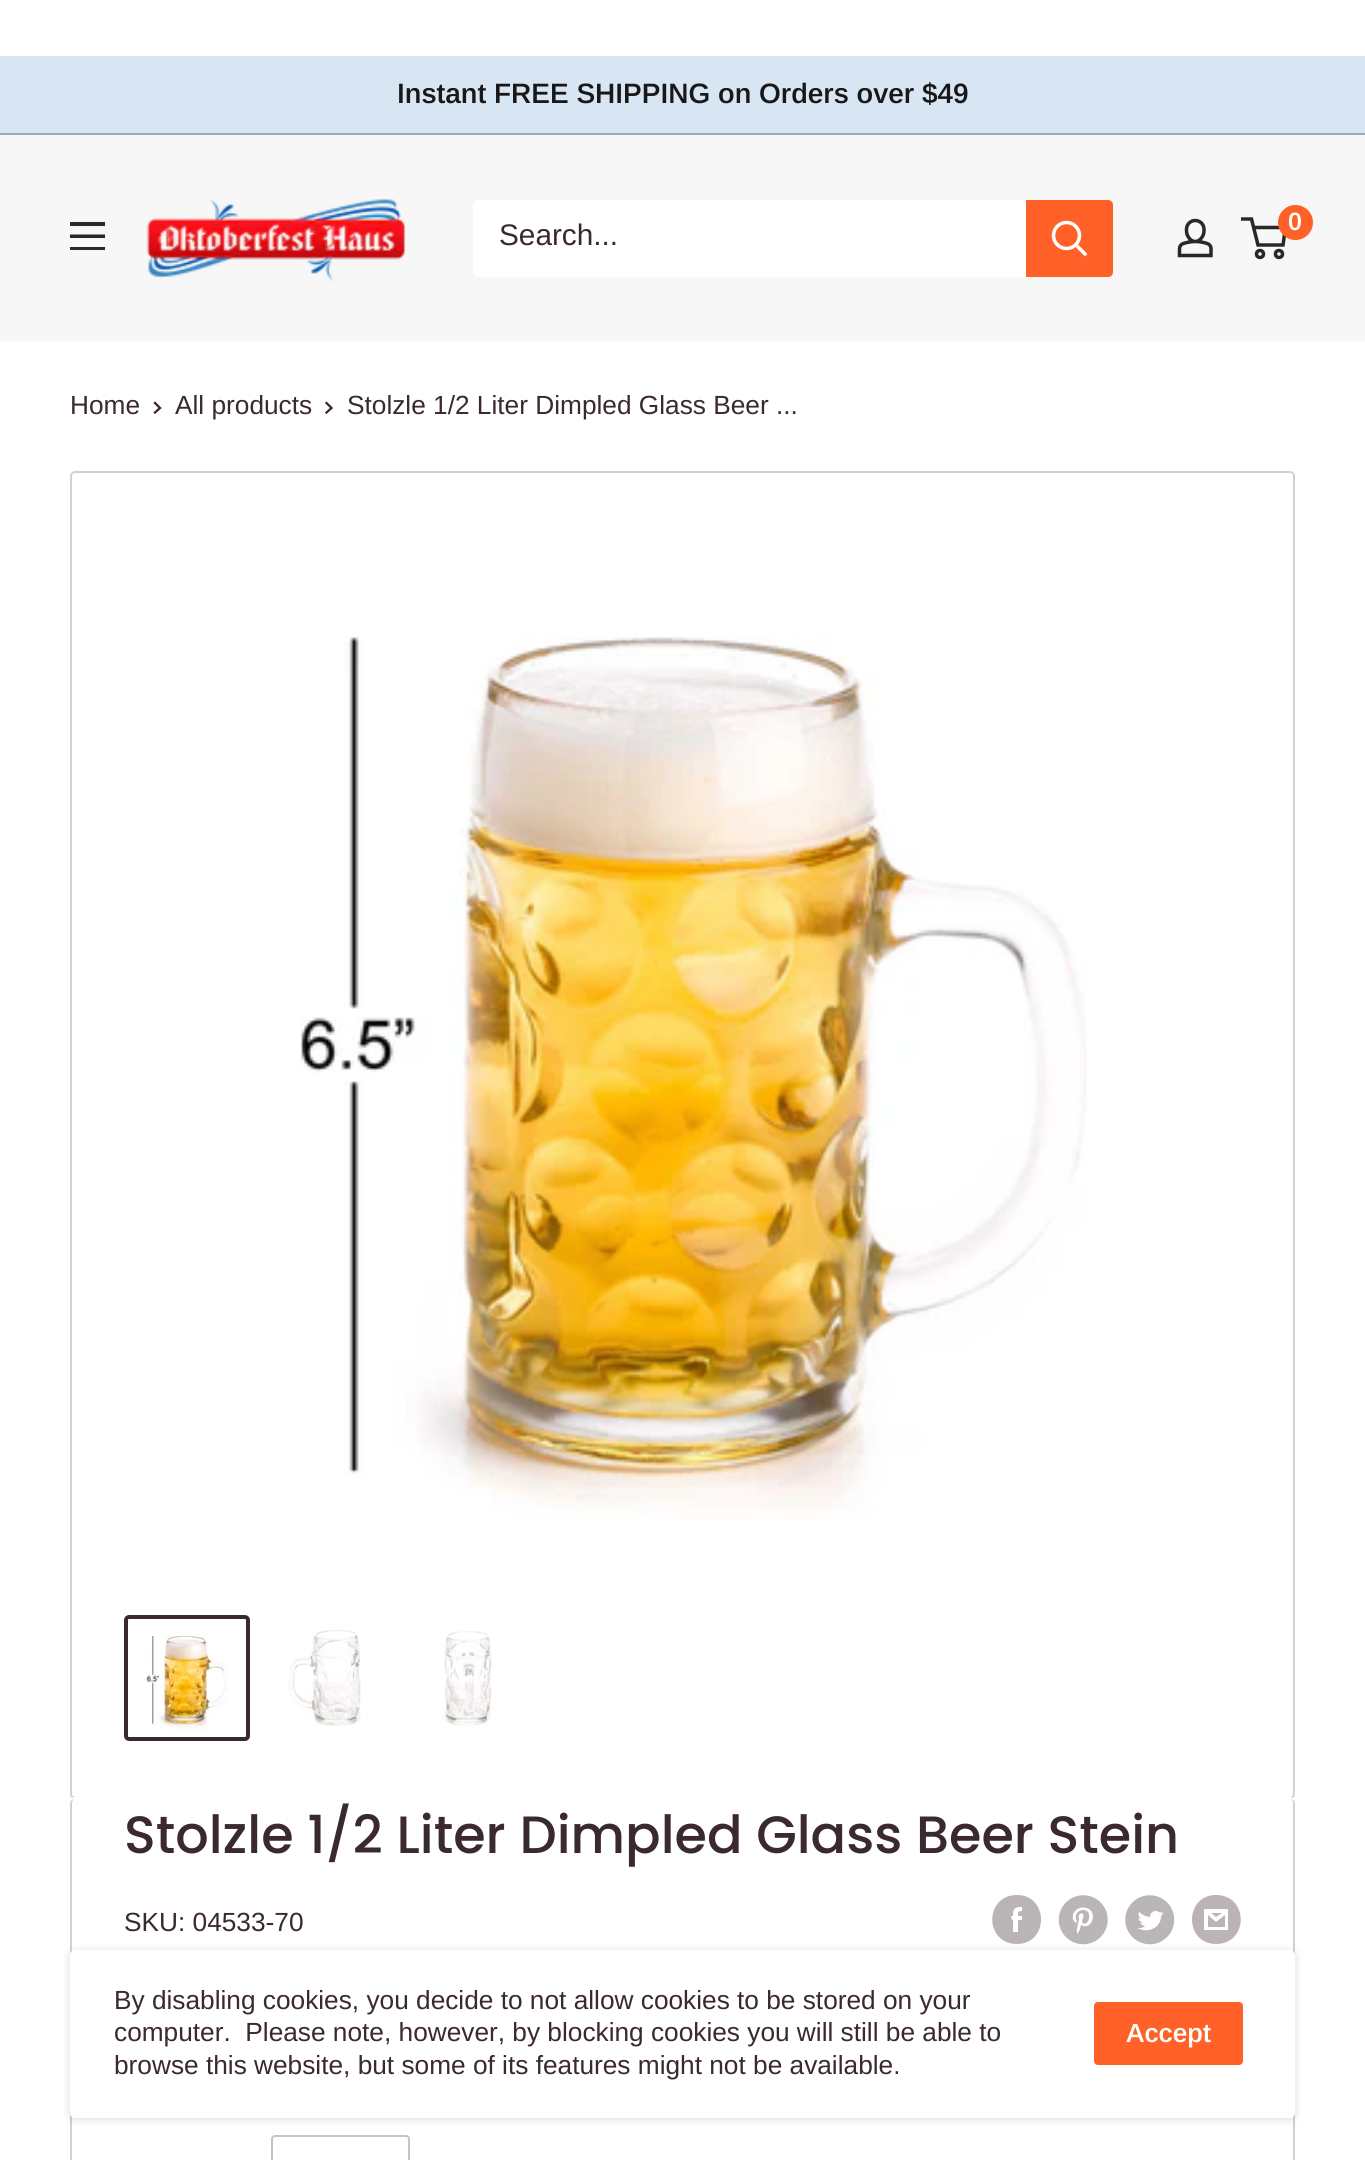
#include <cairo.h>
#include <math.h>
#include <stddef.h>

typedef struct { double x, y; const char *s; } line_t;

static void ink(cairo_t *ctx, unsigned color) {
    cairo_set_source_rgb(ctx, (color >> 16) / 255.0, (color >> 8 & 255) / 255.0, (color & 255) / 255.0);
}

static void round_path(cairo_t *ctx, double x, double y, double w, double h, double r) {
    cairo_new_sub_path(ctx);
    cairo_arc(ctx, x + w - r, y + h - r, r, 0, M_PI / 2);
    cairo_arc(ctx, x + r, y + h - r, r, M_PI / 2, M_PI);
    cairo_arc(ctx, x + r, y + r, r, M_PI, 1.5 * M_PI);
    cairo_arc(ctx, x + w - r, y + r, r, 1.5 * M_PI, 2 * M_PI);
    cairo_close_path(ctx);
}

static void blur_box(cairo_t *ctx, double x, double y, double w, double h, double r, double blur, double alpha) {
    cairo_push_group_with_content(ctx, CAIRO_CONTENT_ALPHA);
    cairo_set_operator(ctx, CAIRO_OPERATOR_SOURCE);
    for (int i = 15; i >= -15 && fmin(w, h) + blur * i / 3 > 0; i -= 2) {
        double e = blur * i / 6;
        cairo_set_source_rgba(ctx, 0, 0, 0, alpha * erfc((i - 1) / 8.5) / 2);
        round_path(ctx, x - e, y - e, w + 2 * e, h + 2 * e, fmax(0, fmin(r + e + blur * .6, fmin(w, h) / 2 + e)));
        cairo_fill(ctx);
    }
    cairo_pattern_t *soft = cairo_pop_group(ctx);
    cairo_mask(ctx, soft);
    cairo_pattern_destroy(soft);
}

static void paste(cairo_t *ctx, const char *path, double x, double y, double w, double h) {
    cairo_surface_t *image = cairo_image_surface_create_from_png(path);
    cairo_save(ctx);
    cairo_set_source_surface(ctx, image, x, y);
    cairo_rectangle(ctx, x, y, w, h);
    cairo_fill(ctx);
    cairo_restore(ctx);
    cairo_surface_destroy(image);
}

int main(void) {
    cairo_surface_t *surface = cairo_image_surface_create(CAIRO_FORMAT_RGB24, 1365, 2160);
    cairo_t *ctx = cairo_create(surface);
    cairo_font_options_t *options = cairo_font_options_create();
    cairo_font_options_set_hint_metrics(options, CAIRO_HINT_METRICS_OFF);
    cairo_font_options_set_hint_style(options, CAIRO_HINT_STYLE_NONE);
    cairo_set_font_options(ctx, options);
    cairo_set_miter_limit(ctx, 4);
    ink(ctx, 0xFFFFFF);
    cairo_paint(ctx);
    ink(ctx, 0xD8E5F2);
    cairo_rectangle(ctx, 0, 56, 1365, 77);
    cairo_fill(ctx);
    ink(ctx, 0x9FA8B1);
    cairo_rectangle(ctx, 0, 133, 1365, 2);
    cairo_fill(ctx);
    cairo_select_font_face(ctx, "Arimo SemiBold", CAIRO_FONT_SLANT_NORMAL, CAIRO_FONT_WEIGHT_NORMAL);
    cairo_set_font_size(ctx, 28);
    ink(ctx, 0x191818);
    cairo_move_to(ctx, 397, 103);
    cairo_show_text(ctx, "Instant FREE SHIPPING on Orders over $49");
    ink(ctx, 0xF7F7F7);
    cairo_rectangle(ctx, 0, 135, 1365, 206);
    cairo_fill(ctx);
    ink(ctx, 0x2B2727);
    cairo_set_fill_rule(ctx, CAIRO_FILL_RULE_EVEN_ODD);
    cairo_new_path(ctx);
    cairo_move_to(ctx, 70, 247);
    cairo_line_to(ctx, 105, 247);
    cairo_line_to(ctx, 105, 250);
    cairo_line_to(ctx, 70, 250);
    cairo_close_path(ctx);
    cairo_move_to(ctx, 70, 222);
    cairo_line_to(ctx, 105, 222);
    cairo_line_to(ctx, 105, 226);
    cairo_line_to(ctx, 70, 226);
    cairo_close_path(ctx);
    cairo_move_to(ctx, 70, 234.5);
    cairo_line_to(ctx, 105, 234.5);
    cairo_line_to(ctx, 105, 238);
    cairo_line_to(ctx, 70, 238);
    cairo_close_path(ctx);
    cairo_fill(ctx);
    paste(ctx, "media/1.png", 146, 199, 260, 83);
    ink(ctx, 0xFFFFFF);
    round_path(ctx, 473, 200, 640, 77, 5);
    cairo_fill(ctx);
    cairo_select_font_face(ctx, "Arimo", CAIRO_FONT_SLANT_NORMAL, CAIRO_FONT_WEIGHT_NORMAL);
    cairo_set_font_size(ctx, 29.75);
    ink(ctx, 0x3A2A2F);
    cairo_move_to(ctx, 499, 245);
    cairo_show_text(ctx, "Search...");
    ink(ctx, 0xFF6128);
    cairo_new_path(ctx);
    cairo_move_to(ctx, 1026, 200);
    cairo_line_to(ctx, 1108, 200);
    cairo_curve_to(ctx, 1111, 200, 1113, 202, 1113, 205);
    cairo_line_to(ctx, 1113, 272);
    cairo_curve_to(ctx, 1113, 275, 1111, 277, 1108, 277);
    cairo_line_to(ctx, 1026, 277);
    cairo_close_path(ctx);
    cairo_fill(ctx);
    cairo_new_path(ctx);
    cairo_move_to(ctx, 1085, 254);
    cairo_line_to(ctx, 1076, 245);
    ink(ctx, 0xFFFFFF);
    cairo_set_line_width(ctx, 3.5);
    cairo_set_line_cap(ctx, CAIRO_LINE_CAP_SQUARE);
    cairo_stroke(ctx);
    cairo_arc(ctx, 1066.5, 235.5, 13, 0, 2 * M_PI);
    cairo_set_line_cap(ctx, CAIRO_LINE_CAP_BUTT);
    cairo_stroke(ctx);
    paste(ctx, "media/2.png", 1177, 218, 36, 40);
    cairo_arc(ctx, 1260, 254, 3.5, 0, 2 * M_PI);
    ink(ctx, 0x2B2727);
    cairo_stroke(ctx);
    cairo_arc(ctx, 1279, 254, 3.5, 0, 2 * M_PI);
    cairo_stroke(ctx);
    cairo_new_path(ctx);
    cairo_move_to(ctx, 1253.5, 227.5);
    cairo_line_to(ctx, 1285.5, 227.5);
    cairo_line_to(ctx, 1283, 245);
    cairo_line_to(ctx, 1258, 245);
    cairo_line_to(ctx, 1251.5, 219);
    cairo_line_to(ctx, 1241, 219);
    cairo_stroke(ctx);
    ink(ctx, 0xFF6128);
    cairo_arc(ctx, 1295.5, 222.5, 17.5, 0, 2 * M_PI);
    cairo_fill(ctx);
    cairo_select_font_face(ctx, "Arimo SemiBold", CAIRO_FONT_SLANT_NORMAL, CAIRO_FONT_WEIGHT_NORMAL);
    cairo_set_font_size(ctx, 25);
    ink(ctx, 0xFFFFFF);
    cairo_move_to(ctx, 1288, 230);
    cairo_show_text(ctx, "0");
    cairo_select_font_face(ctx, "Arimo", CAIRO_FONT_SLANT_NORMAL, CAIRO_FONT_WEIGHT_NORMAL);
    cairo_set_font_size(ctx, 26.25);
    ink(ctx, 0x3A2A2F);
    cairo_move_to(ctx, 70, 414);
    cairo_show_text(ctx, "Home");
    cairo_new_path(ctx);
    cairo_move_to(ctx, 155, 403);
    cairo_line_to(ctx, 160, 408);
    cairo_line_to(ctx, 155, 412.5);
    cairo_set_line_width(ctx, 2.3);
    cairo_set_line_cap(ctx, CAIRO_LINE_CAP_SQUARE);
    cairo_stroke(ctx);
    cairo_move_to(ctx, 175, 414);
    cairo_show_text(ctx, "All products");
    cairo_new_path(ctx);
    cairo_move_to(ctx, 326.5, 403);
    cairo_line_to(ctx, 331.5, 408);
    cairo_line_to(ctx, 326.5, 412.5);
    cairo_stroke(ctx);
    cairo_move_to(ctx, 347, 414);
    cairo_show_text(ctx, "Stolzle 1/2 Liter Dimpled Glass Beer ...");
    round_path(ctx, 71, 472, 1223, 1326, 4);
    ink(ctx, 0xD1D1D4);
    cairo_set_line_width(ctx, 2);
    cairo_set_line_cap(ctx, CAIRO_LINE_CAP_BUTT);
    cairo_stroke(ctx);
    paste(ctx, "media/3.png", 300, 635, 787, 884);
    round_path(ctx, 126, 1617, 122, 122, 3);
    ink(ctx, 0x3A2A2F);
    cairo_set_line_width(ctx, 4);
    cairo_stroke(ctx);
    paste(ctx, "media/4.png", 146, 1635, 83, 97);
    paste(ctx, "media/5.png", 288, 1630, 73, 96);
    paste(ctx, "media/6.png", 442, 1631, 51, 95);
    ink(ctx, 0xFFFFFF);
    cairo_set_fill_rule(ctx, CAIRO_FILL_RULE_WINDING);
    cairo_new_path(ctx);
    cairo_move_to(ctx, 75, 1797);
    cairo_curve_to(ctx, 71, 1797, 70, 1801, 70, 1804);
    cairo_curve_to(ctx, 70, 1801, 72, 1799, 75, 1799);
    cairo_line_to(ctx, 1290, 1799);
    cairo_curve_to(ctx, 1293, 1799, 1295, 1801, 1295, 1804);
    cairo_curve_to(ctx, 1295, 1801, 1294, 1797, 1290, 1797);
    cairo_close_path(ctx);
    cairo_fill(ctx);
    ink(ctx, 0xD1D1D4);
    cairo_set_fill_rule(ctx, CAIRO_FILL_RULE_EVEN_ODD);
    cairo_new_path(ctx);
    cairo_move_to(ctx, 75, 1799);
    cairo_line_to(ctx, 1290, 1799);
    cairo_curve_to(ctx, 1293, 1799, 1295, 1801, 1295, 1804);
    cairo_line_to(ctx, 1295, 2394);
    cairo_curve_to(ctx, 1295, 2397, 1293, 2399, 1290, 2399);
    cairo_line_to(ctx, 75, 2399);
    cairo_curve_to(ctx, 72, 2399, 70, 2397, 70, 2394);
    cairo_line_to(ctx, 70, 1804);
    cairo_curve_to(ctx, 70, 1801, 72, 1799, 75, 1799);
    cairo_close_path(ctx);
    cairo_move_to(ctx, 75, 1799);
    cairo_line_to(ctx, 1290, 1799);
    cairo_curve_to(ctx, 1292, 1799, 1293, 1801, 1293, 1804);
    cairo_line_to(ctx, 1293, 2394);
    cairo_curve_to(ctx, 1293, 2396, 1292, 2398, 1290, 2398);
    cairo_line_to(ctx, 75, 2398);
    cairo_curve_to(ctx, 73, 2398, 72, 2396, 72, 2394);
    cairo_line_to(ctx, 72, 1804);
    cairo_curve_to(ctx, 72, 1801, 73, 1799, 75, 1799);
    cairo_close_path(ctx);
    cairo_fill(ctx);
    cairo_select_font_face(ctx, "Poppins Medium", CAIRO_FONT_SLANT_NORMAL, CAIRO_FONT_WEIGHT_NORMAL);
    cairo_set_font_size(ctx, 52.5);
    ink(ctx, 0x3A2A2F);
    cairo_move_to(ctx, 124, 1853);
    cairo_show_text(ctx, "Stolzle 1/2 Liter Dimpled Glass Beer Stein");
    cairo_select_font_face(ctx, "Arimo", CAIRO_FONT_SLANT_NORMAL, CAIRO_FONT_WEIGHT_NORMAL);
    cairo_set_font_size(ctx, 26.25);
    cairo_move_to(ctx, 124, 1931);
    cairo_show_text(ctx, "SKU: 04533-70");
    ink(ctx, 0xBAB4B6);
    cairo_new_path(ctx);
    cairo_move_to(ctx, 1017, 1944);
    cairo_curve_to(ctx, 984, 1944, 984, 1895, 1017, 1895);
    cairo_curve_to(ctx, 1049, 1895, 1049, 1944, 1017, 1944);
    cairo_close_path(ctx);
    cairo_move_to(ctx, 1022, 1916);
    cairo_line_to(ctx, 1018, 1916);
    cairo_curve_to(ctx, 1018, 1912, 1018, 1911, 1022, 1911);
    cairo_line_to(ctx, 1022, 1907);
    cairo_curve_to(ctx, 1014, 1907, 1013, 1909, 1013, 1916);
    cairo_line_to(ctx, 1011, 1916);
    cairo_line_to(ctx, 1012, 1920);
    cairo_line_to(ctx, 1013, 1920);
    cairo_line_to(ctx, 1013, 1932);
    cairo_line_to(ctx, 1018, 1932);
    cairo_line_to(ctx, 1018, 1920);
    cairo_line_to(ctx, 1022, 1920);
    cairo_close_path(ctx);
    cairo_fill(ctx);
    paste(ctx, "media/7.png", 1058, 1895, 50, 50);
    paste(ctx, "media/8.png", 1125, 1895, 50, 50);
    cairo_set_fill_rule(ctx, CAIRO_FILL_RULE_WINDING);
    cairo_new_path(ctx);
    cairo_move_to(ctx, 1216, 1944);
    cairo_curve_to(ctx, 1184, 1944, 1184, 1895, 1216, 1895);
    cairo_curve_to(ctx, 1249, 1895, 1249, 1944, 1216, 1944);
    cairo_close_path(ctx);
    cairo_move_to(ctx, 1211, 1913);
    cairo_line_to(ctx, 1222, 1913);
    cairo_line_to(ctx, 1216, 1917);
    cairo_close_path(ctx);
    cairo_move_to(ctx, 1225, 1915);
    cairo_line_to(ctx, 1225, 1927);
    cairo_line_to(ctx, 1208, 1927);
    cairo_line_to(ctx, 1208, 1915);
    cairo_line_to(ctx, 1216, 1922);
    cairo_close_path(ctx);
    cairo_move_to(ctx, 1228, 1909);
    cairo_line_to(ctx, 1204, 1909);
    cairo_line_to(ctx, 1204, 1930);
    cairo_line_to(ctx, 1228, 1930);
    cairo_close_path(ctx);
    cairo_fill(ctx);
    round_path(ctx, 272, 2136, 137, 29, 3);
    ink(ctx, 0xC4C4C8);
    cairo_set_line_width(ctx, 2);
    cairo_stroke(ctx);
    ink(ctx, 0x000000);
    blur_box(ctx, 68, 1950, 1229, 171, 7, 3.5, 0.1);
    ink(ctx, 0xFFFFFF);
    round_path(ctx, 70, 1950, 1225, 168, 5);
    cairo_fill(ctx);
    ink(ctx, 0x3A2A2F);
    {
        static const line_t items[] = {
            {114, 2009, "By disabling cookies, you decide to not allow cookies to be stored on your"},
            {114, 2041, "computer.  Please note, however, by blocking cookies you will still be able to"},
            {114, 2074, "browse this website, but some of its features might not be available."},
        };
        for (size_t i = 0; i < sizeof items / sizeof *items; i++) {
            cairo_move_to(ctx, items[i].x, items[i].y);
            cairo_show_text(ctx, items[i].s);
        }
    }
    ink(ctx, 0xFF6128);
    round_path(ctx, 1094, 2002, 149, 63, 4);
    cairo_fill(ctx);
    cairo_select_font_face(ctx, "Arimo SemiBold", CAIRO_FONT_SLANT_NORMAL, CAIRO_FONT_WEIGHT_NORMAL);
    ink(ctx, 0xFFFFFF);
    cairo_move_to(ctx, 1126, 2042);
    cairo_show_text(ctx, "Accept");
    cairo_surface_write_to_png(surface, "image.png");
    cairo_font_options_destroy(options);
    cairo_destroy(ctx);
    cairo_surface_destroy(surface);
    return 0;
}
